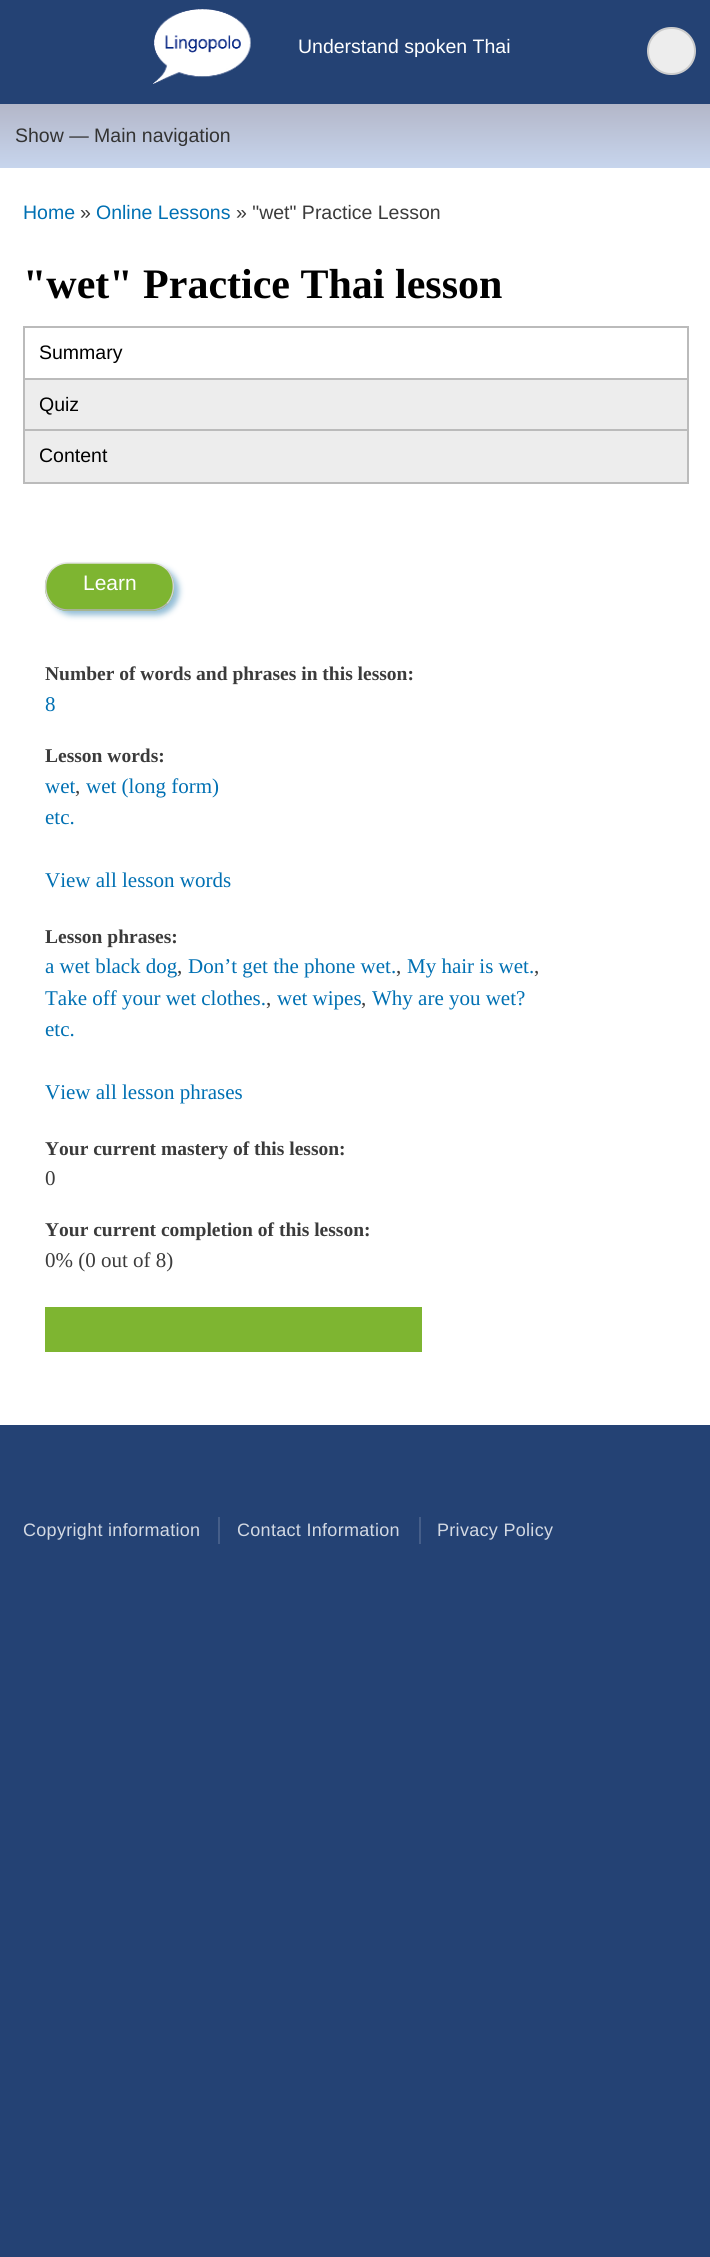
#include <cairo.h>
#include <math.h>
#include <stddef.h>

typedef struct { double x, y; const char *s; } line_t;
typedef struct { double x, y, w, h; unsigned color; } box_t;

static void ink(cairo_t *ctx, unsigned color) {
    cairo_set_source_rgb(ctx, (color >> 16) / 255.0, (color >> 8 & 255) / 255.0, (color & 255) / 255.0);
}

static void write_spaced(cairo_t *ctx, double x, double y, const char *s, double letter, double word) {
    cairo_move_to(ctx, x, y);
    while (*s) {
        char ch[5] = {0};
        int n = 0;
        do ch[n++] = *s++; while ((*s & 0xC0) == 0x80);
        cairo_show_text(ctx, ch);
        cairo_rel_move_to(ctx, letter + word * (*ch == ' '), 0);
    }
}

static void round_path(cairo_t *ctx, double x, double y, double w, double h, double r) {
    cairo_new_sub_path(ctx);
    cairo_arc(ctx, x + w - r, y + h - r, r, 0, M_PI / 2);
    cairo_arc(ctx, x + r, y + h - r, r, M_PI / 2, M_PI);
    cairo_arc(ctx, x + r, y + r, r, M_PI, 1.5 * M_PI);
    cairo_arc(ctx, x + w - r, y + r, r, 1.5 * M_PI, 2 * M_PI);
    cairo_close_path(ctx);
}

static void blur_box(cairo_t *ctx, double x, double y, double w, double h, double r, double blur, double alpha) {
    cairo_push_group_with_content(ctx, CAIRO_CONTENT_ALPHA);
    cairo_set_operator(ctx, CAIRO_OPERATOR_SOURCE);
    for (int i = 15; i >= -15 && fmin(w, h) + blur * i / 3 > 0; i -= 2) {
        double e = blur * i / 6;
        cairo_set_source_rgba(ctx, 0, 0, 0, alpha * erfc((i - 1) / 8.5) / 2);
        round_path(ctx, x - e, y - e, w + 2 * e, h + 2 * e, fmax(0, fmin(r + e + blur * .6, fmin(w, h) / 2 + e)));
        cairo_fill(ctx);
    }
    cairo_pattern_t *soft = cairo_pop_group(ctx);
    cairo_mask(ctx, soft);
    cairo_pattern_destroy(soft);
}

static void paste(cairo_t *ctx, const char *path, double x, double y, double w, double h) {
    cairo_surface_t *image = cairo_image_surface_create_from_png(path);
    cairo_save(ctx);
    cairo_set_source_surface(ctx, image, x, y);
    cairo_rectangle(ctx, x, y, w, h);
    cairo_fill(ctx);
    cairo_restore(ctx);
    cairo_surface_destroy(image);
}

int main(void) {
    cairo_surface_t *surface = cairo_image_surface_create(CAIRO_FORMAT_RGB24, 710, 2257);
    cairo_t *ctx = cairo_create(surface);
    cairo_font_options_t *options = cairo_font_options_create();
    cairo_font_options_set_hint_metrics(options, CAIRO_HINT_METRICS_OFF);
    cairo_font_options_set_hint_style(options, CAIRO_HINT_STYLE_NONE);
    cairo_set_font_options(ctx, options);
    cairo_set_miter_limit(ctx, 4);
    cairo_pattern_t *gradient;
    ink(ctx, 0x244274);
    cairo_paint(ctx);
    ink(ctx, 0xFFFFFF);
    cairo_rectangle(ctx, 0, 168, 710, 1257);
    cairo_fill(ctx);
    paste(ctx, "media/1.png", 153, 9, 98, 75);
    cairo_select_font_face(ctx, "Liberation Sans", CAIRO_FONT_SLANT_NORMAL, CAIRO_FONT_WEIGHT_NORMAL);
    cairo_set_font_size(ctx, 19.5);
    cairo_move_to(ctx, 298, 53);
    cairo_show_text(ctx, "Understand spoken Thai");
    ink(ctx, 0xEDEDED);
    round_path(ctx, 648, 28, 47, 46, 23);
    cairo_fill_preserve(ctx);
    ink(ctx, 0xCCCCCC);
    cairo_stroke(ctx);
    gradient = cairo_pattern_create_linear(356, 103, 356, 168);
    cairo_pattern_add_color_stop_rgba(gradient, 0, 0.702, 0.714, 0.784, 1);
    cairo_pattern_add_color_stop_rgba(gradient, 1, 0.78, 0.835, 0.929, 1);
    cairo_set_source(ctx, gradient);
    cairo_pattern_destroy(gradient);
    cairo_rectangle(ctx, 0, 104, 710, 64);
    cairo_fill(ctx);
    ink(ctx, 0x333333);
    cairo_move_to(ctx, 15, 142);
    cairo_show_text(ctx, "Show — Main navigation");
    ink(ctx, 0x0070B3);
    cairo_move_to(ctx, 23, 219);
    cairo_show_text(ctx, "Home");
    ink(ctx, 0x3B3B3B);
    cairo_move_to(ctx, 80, 219);
    cairo_show_text(ctx, "»");
    ink(ctx, 0x0070B3);
    cairo_move_to(ctx, 96, 219);
    cairo_show_text(ctx, "Online Lessons");
    ink(ctx, 0x3B3B3B);
    cairo_move_to(ctx, 236, 219);
    cairo_show_text(ctx, "» \"wet\" Practice Lesson");
    cairo_select_font_face(ctx, "Liberation Serif", CAIRO_FONT_SLANT_NORMAL, CAIRO_FONT_WEIGHT_BOLD);
    cairo_set_font_size(ctx, 42);
    ink(ctx, 0x000000);
    cairo_move_to(ctx, 23, 298);
    cairo_show_text(ctx, "\"wet\" Practice Thai lesson");
    {
        static const box_t items[] = {
            {23, 482, 666, 2, 0xBBBBBB},
            {23, 326, 666, 2, 0xBBBBBB},
            {687, 326, 2, 52, 0xBBBBBB},
            {23, 326, 2, 52, 0xBBBBBB},
        };
        for (size_t i = 0; i < sizeof items / sizeof *items; i++) {
            ink(ctx, items[i].color);
            cairo_rectangle(ctx, items[i].x, items[i].y, items[i].w, items[i].h);
            cairo_fill(ctx);
        }
    }
    cairo_select_font_face(ctx, "Liberation Sans", CAIRO_FONT_SLANT_NORMAL, CAIRO_FONT_WEIGHT_NORMAL);
    cairo_set_font_size(ctx, 19.5);
    ink(ctx, 0x000000);
    cairo_move_to(ctx, 39, 359);
    cairo_show_text(ctx, "Summary");
    {
        static const box_t items[] = {
            {25, 380, 662, 49, 0xEDEDED},
            {23, 378, 666, 2, 0xBBBBBB},
            {687, 378, 2, 51, 0xBBBBBB},
            {23, 378, 2, 51, 0xBBBBBB},
        };
        for (size_t i = 0; i < sizeof items / sizeof *items; i++) {
            ink(ctx, items[i].color);
            cairo_rectangle(ctx, items[i].x, items[i].y, items[i].w, items[i].h);
            cairo_fill(ctx);
        }
    }
    ink(ctx, 0x000000);
    cairo_move_to(ctx, 39, 411);
    cairo_show_text(ctx, "Quiz");
    {
        static const box_t items[] = {
            {25, 431, 662, 51, 0xEDEDED},
            {23, 429, 666, 2, 0xBBBBBB},
            {687, 429, 2, 53, 0xBBBBBB},
            {23, 429, 2, 53, 0xBBBBBB},
        };
        for (size_t i = 0; i < sizeof items / sizeof *items; i++) {
            ink(ctx, items[i].color);
            cairo_rectangle(ctx, items[i].x, items[i].y, items[i].w, items[i].h);
            cairo_fill(ctx);
        }
    }
    ink(ctx, 0x000000);
    cairo_move_to(ctx, 39, 462);
    cairo_show_text(ctx, "Content");
    ink(ctx, 0x93BDD6);
    blur_box(ctx, 50, 567, 129, 48, 23, 3, 1);
    ink(ctx, 0x7EB531);
    round_path(ctx, 45, 563, 129, 48, 23);
    cairo_fill(ctx);
    cairo_new_path(ctx);
    cairo_move_to(ctx, 52, 569.5);
    cairo_curve_to(ctx, 56, 565.5, 61.5, 563, 67.5, 563);
    cairo_line_to(ctx, 151.5, 563);
    cairo_curve_to(ctx, 157.5, 563, 163, 565.5, 167, 569.5);
    ink(ctx, 0xE4E4E4);
    cairo_set_line_width(ctx, 1.5);
    cairo_stroke(ctx);
    cairo_new_path(ctx);
    cairo_move_to(ctx, 167, 569.5);
    cairo_curve_to(ctx, 175.5, 578.5, 175.5, 594.5, 167, 603.5);
    ink(ctx, 0xD2D2D2);
    cairo_stroke(ctx);
    cairo_new_path(ctx);
    cairo_move_to(ctx, 167, 603.5);
    cairo_curve_to(ctx, 163, 607.5, 157.5, 610, 151.5, 610);
    cairo_line_to(ctx, 67.5, 610);
    cairo_curve_to(ctx, 61.5, 610, 56, 607.5, 52, 603.5);
    ink(ctx, 0xB4B4B4);
    cairo_stroke(ctx);
    cairo_new_path(ctx);
    cairo_move_to(ctx, 52, 603.5);
    cairo_curve_to(ctx, 43.5, 594.5, 43.5, 578.5, 52, 569.5);
    ink(ctx, 0xD2D2D2);
    cairo_stroke(ctx);
    cairo_set_font_size(ctx, 21);
    ink(ctx, 0xFFFFFF);
    cairo_move_to(ctx, 83, 590);
    cairo_show_text(ctx, "Learn");
    cairo_select_font_face(ctx, "Liberation Serif", CAIRO_FONT_SLANT_NORMAL, CAIRO_FONT_WEIGHT_BOLD);
    cairo_set_font_size(ctx, 19.5);
    ink(ctx, 0x3B3B3B);
    cairo_move_to(ctx, 45, 680);
    cairo_show_text(ctx, "Number of words and phrases in this lesson:");
    cairo_select_font_face(ctx, "Liberation Serif", CAIRO_FONT_SLANT_NORMAL, CAIRO_FONT_WEIGHT_NORMAL);
    cairo_set_font_size(ctx, 21);
    ink(ctx, 0x0070B3);
    cairo_move_to(ctx, 45, 711);
    cairo_show_text(ctx, "8");
    cairo_select_font_face(ctx, "Liberation Serif", CAIRO_FONT_SLANT_NORMAL, CAIRO_FONT_WEIGHT_BOLD);
    cairo_set_font_size(ctx, 19.5);
    ink(ctx, 0x3B3B3B);
    cairo_move_to(ctx, 45, 762);
    cairo_show_text(ctx, "Lesson words:");
    cairo_select_font_face(ctx, "Liberation Serif", CAIRO_FONT_SLANT_NORMAL, CAIRO_FONT_WEIGHT_NORMAL);
    cairo_set_font_size(ctx, 21);
    ink(ctx, 0x0070B3);
    cairo_move_to(ctx, 45, 793);
    cairo_show_text(ctx, "wet");
    ink(ctx, 0x3B3B3B);
    cairo_move_to(ctx, 75, 793);
    cairo_show_text(ctx, ",");
    ink(ctx, 0x0070B3);
    {
        static const line_t items[] = {
            {86, 793, "wet (long form)"},
            {45, 824, "etc."},
            {45, 887, "View all lesson words"},
        };
        for (size_t i = 0; i < sizeof items / sizeof *items; i++) {
            cairo_move_to(ctx, items[i].x, items[i].y);
            cairo_show_text(ctx, items[i].s);
        }
    }
    cairo_select_font_face(ctx, "Liberation Serif", CAIRO_FONT_SLANT_NORMAL, CAIRO_FONT_WEIGHT_BOLD);
    cairo_set_font_size(ctx, 19.5);
    ink(ctx, 0x3B3B3B);
    cairo_move_to(ctx, 45, 943);
    cairo_show_text(ctx, "Lesson phrases:");
    cairo_select_font_face(ctx, "Liberation Serif", CAIRO_FONT_SLANT_NORMAL, CAIRO_FONT_WEIGHT_NORMAL);
    cairo_set_font_size(ctx, 21);
    ink(ctx, 0x0070B3);
    cairo_move_to(ctx, 45, 973);
    cairo_show_text(ctx, "a wet black dog");
    ink(ctx, 0x3B3B3B);
    cairo_move_to(ctx, 177, 973);
    cairo_show_text(ctx, ",");
    ink(ctx, 0x0070B3);
    cairo_move_to(ctx, 188, 973);
    cairo_show_text(ctx, "Don’t get the phone wet.");
    ink(ctx, 0x3B3B3B);
    cairo_move_to(ctx, 396, 973);
    cairo_show_text(ctx, ",");
    ink(ctx, 0x0070B3);
    cairo_move_to(ctx, 407, 973);
    cairo_show_text(ctx, "My hair is wet.");
    ink(ctx, 0x3B3B3B);
    cairo_move_to(ctx, 534, 973);
    cairo_show_text(ctx, ",");
    ink(ctx, 0x0070B3);
    cairo_move_to(ctx, 45, 1005);
    cairo_show_text(ctx, "Take off your wet clothes.");
    ink(ctx, 0x3B3B3B);
    cairo_move_to(ctx, 266, 1005);
    cairo_show_text(ctx, ",");
    ink(ctx, 0x0070B3);
    cairo_move_to(ctx, 277, 1005);
    cairo_show_text(ctx, "wet wipes");
    ink(ctx, 0x3B3B3B);
    cairo_move_to(ctx, 361, 1005);
    cairo_show_text(ctx, ",");
    ink(ctx, 0x0070B3);
    {
        static const line_t items[] = {
            {372, 1005, "Why are you wet?"},
            {45, 1036, "etc."},
            {45, 1099, "View all lesson phrases"},
        };
        for (size_t i = 0; i < sizeof items / sizeof *items; i++) {
            cairo_move_to(ctx, items[i].x, items[i].y);
            cairo_show_text(ctx, items[i].s);
        }
    }
    cairo_select_font_face(ctx, "Liberation Serif", CAIRO_FONT_SLANT_NORMAL, CAIRO_FONT_WEIGHT_BOLD);
    cairo_set_font_size(ctx, 19.5);
    ink(ctx, 0x3B3B3B);
    cairo_move_to(ctx, 45, 1155);
    cairo_show_text(ctx, "Your current mastery of this lesson:");
    cairo_select_font_face(ctx, "Liberation Serif", CAIRO_FONT_SLANT_NORMAL, CAIRO_FONT_WEIGHT_NORMAL);
    cairo_set_font_size(ctx, 21);
    cairo_move_to(ctx, 45, 1185);
    cairo_show_text(ctx, "0");
    cairo_select_font_face(ctx, "Liberation Serif", CAIRO_FONT_SLANT_NORMAL, CAIRO_FONT_WEIGHT_BOLD);
    cairo_set_font_size(ctx, 19.5);
    cairo_move_to(ctx, 45, 1236);
    cairo_show_text(ctx, "Your current completion of this lesson:");
    cairo_select_font_face(ctx, "Liberation Serif", CAIRO_FONT_SLANT_NORMAL, CAIRO_FONT_WEIGHT_NORMAL);
    cairo_set_font_size(ctx, 21);
    cairo_move_to(ctx, 45, 1267);
    cairo_show_text(ctx, "0% (0 out of 8)");
    ink(ctx, 0x7EB531);
    cairo_rectangle(ctx, 45, 1307, 377, 45);
    cairo_fill(ctx);
    ink(ctx, 0x455E89);
    cairo_rectangle(ctx, 218, 1517, 2, 27);
    cairo_fill(ctx);
    cairo_select_font_face(ctx, "Liberation Sans", CAIRO_FONT_SLANT_NORMAL, CAIRO_FONT_WEIGHT_NORMAL);
    cairo_set_font_size(ctx, 18);
    ink(ctx, 0xD3D9E3);
    write_spaced(ctx, 23, 1536, "Copyright information", 0.3, 0);
    ink(ctx, 0x455E89);
    cairo_rectangle(ctx, 419, 1517, 2, 27);
    cairo_fill(ctx);
    ink(ctx, 0xD3D9E3);
    write_spaced(ctx, 237, 1536, "Contact Information", 0.3, 0);
    write_spaced(ctx, 437, 1536, "Privacy Policy", 0.3, 0);
    cairo_surface_write_to_png(surface, "image.png");
    cairo_font_options_destroy(options);
    cairo_destroy(ctx);
    cairo_surface_destroy(surface);
    return 0;
}
